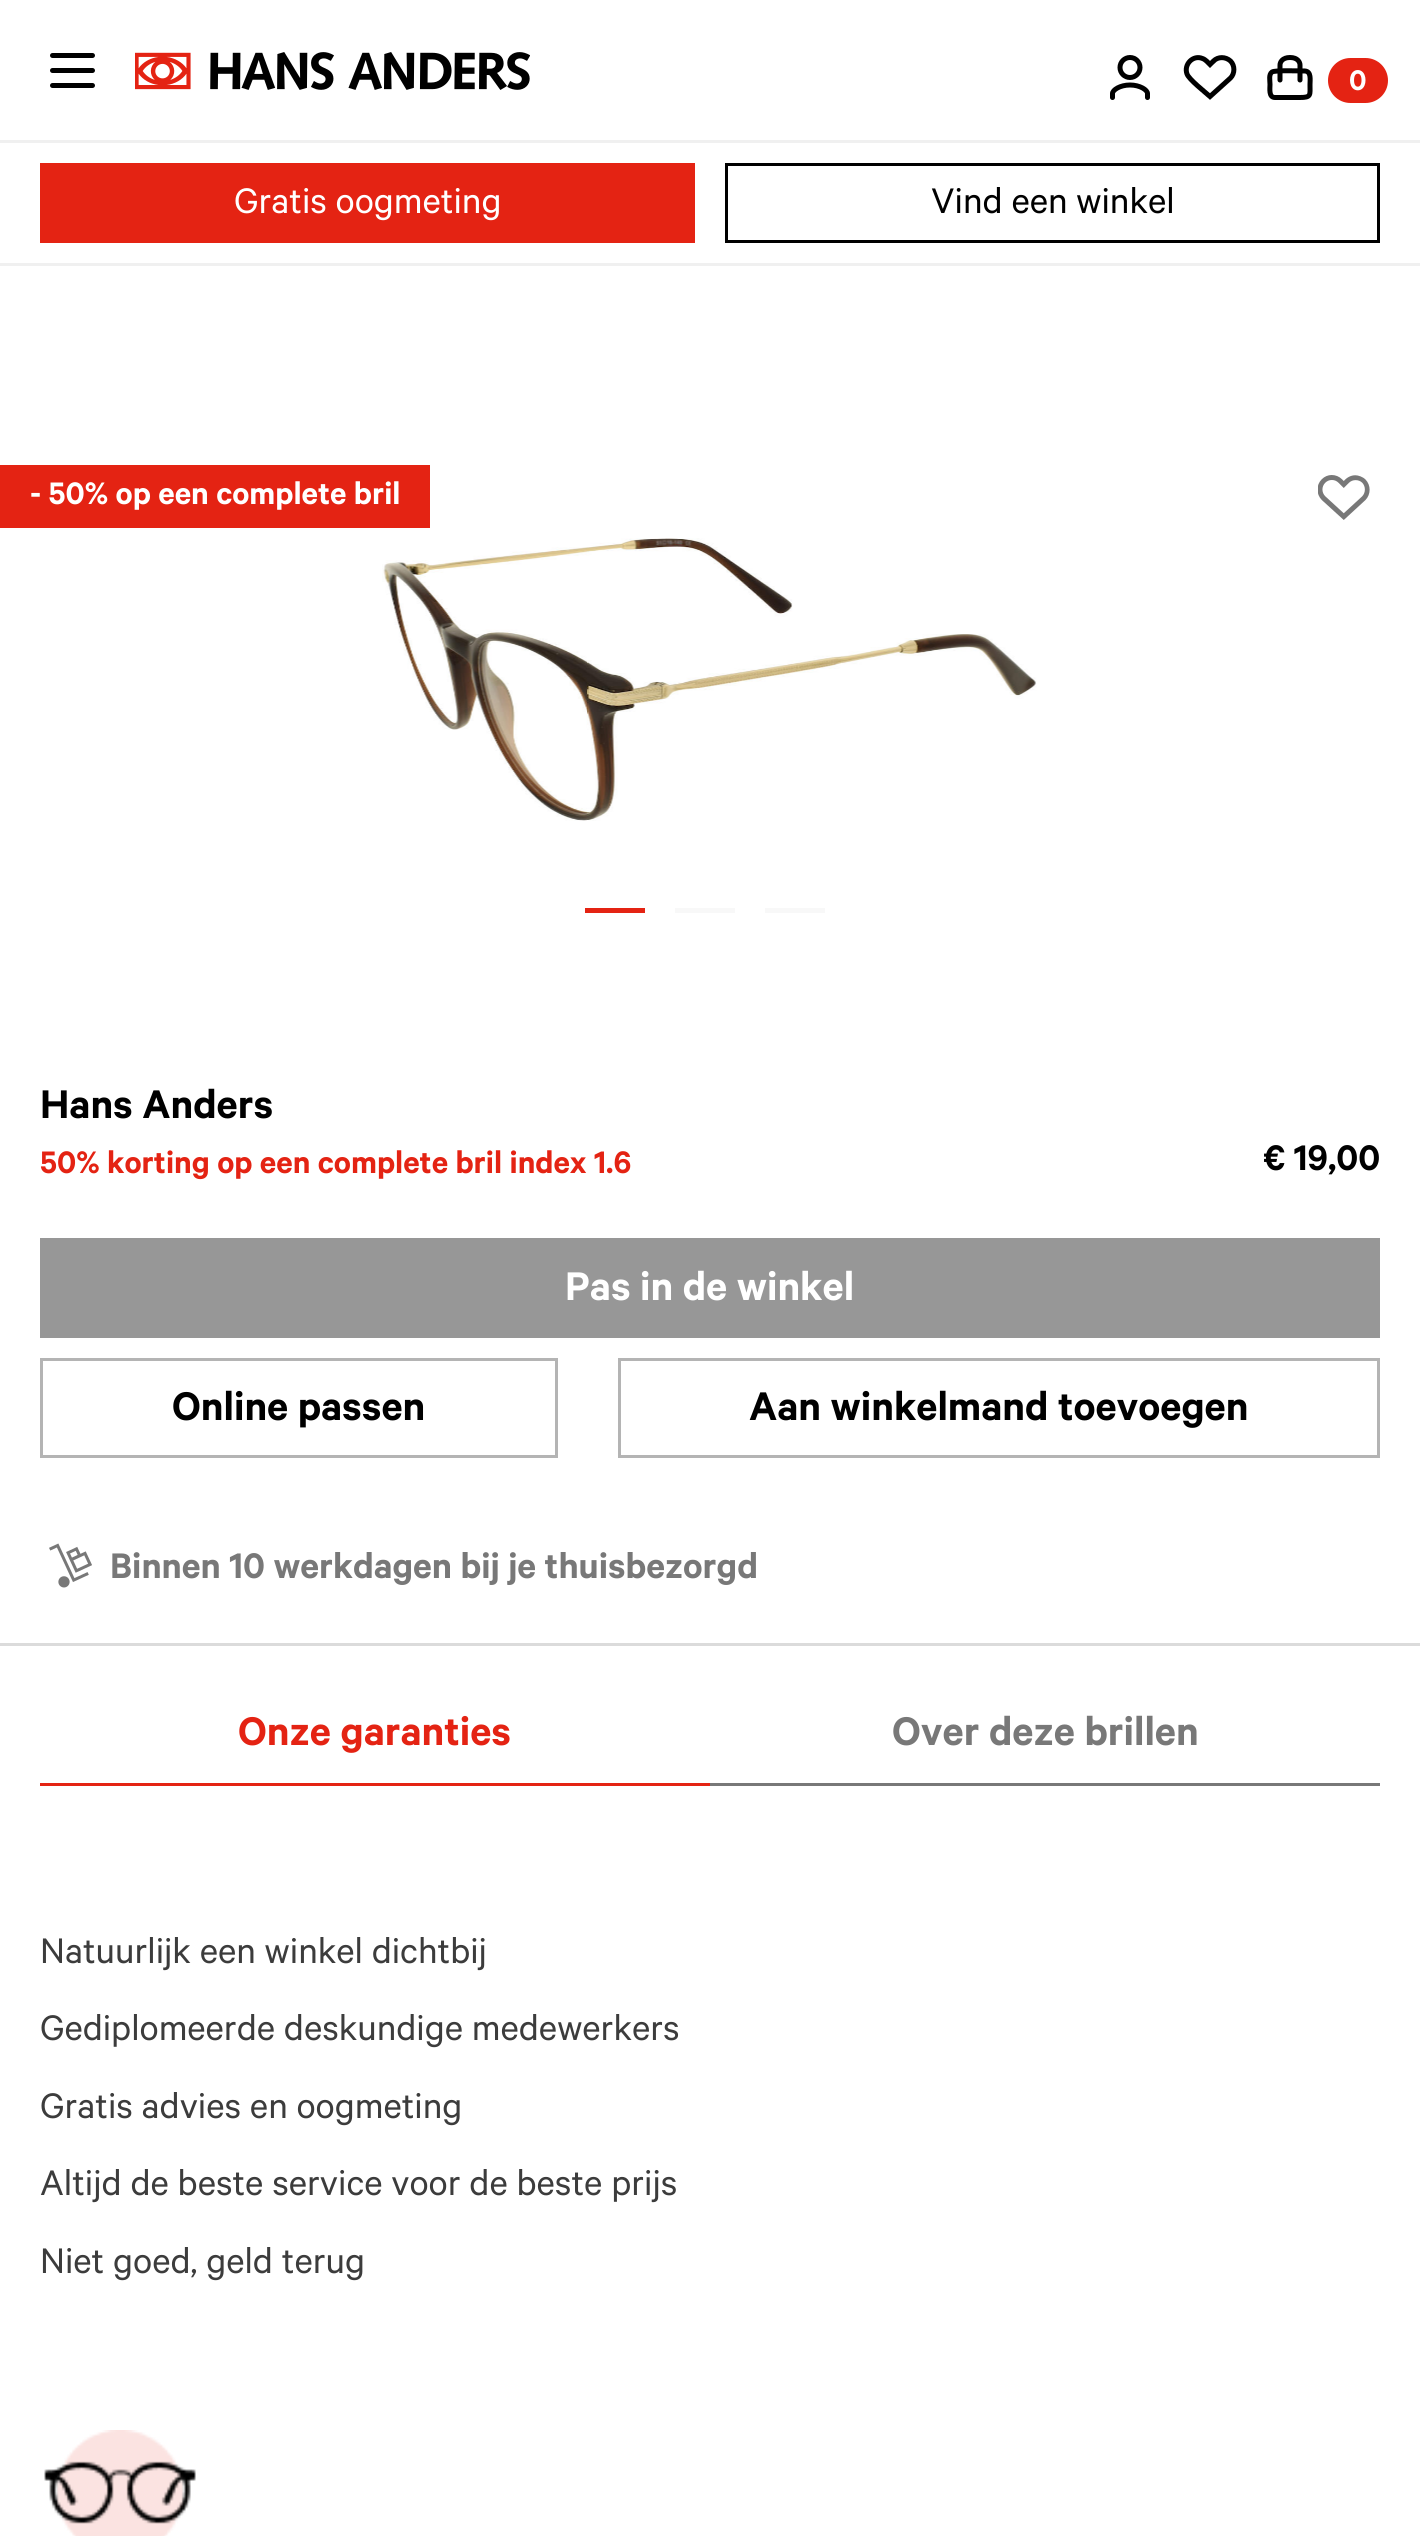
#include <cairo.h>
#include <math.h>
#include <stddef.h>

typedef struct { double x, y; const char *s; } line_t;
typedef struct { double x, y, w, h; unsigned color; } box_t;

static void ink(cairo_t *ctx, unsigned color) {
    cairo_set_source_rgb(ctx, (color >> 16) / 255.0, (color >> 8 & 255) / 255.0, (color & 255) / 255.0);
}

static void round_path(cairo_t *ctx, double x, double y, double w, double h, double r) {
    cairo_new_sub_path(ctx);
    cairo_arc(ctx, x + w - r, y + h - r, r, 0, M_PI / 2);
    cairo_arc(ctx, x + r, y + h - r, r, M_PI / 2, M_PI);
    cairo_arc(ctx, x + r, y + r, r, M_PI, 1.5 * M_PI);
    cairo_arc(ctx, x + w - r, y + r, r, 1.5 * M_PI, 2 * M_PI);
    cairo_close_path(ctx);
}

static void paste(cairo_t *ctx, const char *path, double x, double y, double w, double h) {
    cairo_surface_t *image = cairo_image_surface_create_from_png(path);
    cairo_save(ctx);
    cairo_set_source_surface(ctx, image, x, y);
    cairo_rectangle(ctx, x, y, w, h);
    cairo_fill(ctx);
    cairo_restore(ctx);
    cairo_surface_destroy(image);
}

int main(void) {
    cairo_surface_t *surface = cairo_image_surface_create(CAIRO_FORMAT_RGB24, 1420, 2536);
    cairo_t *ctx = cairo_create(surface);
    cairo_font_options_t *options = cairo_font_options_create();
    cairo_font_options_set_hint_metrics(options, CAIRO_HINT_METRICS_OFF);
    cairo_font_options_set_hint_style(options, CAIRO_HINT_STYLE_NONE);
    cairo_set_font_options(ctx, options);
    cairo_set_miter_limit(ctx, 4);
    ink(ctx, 0xFFFFFF);
    cairo_paint(ctx);
    ink(ctx, 0xF0F0F0);
    cairo_rectangle(ctx, 0, 140, 1420, 3);
    cairo_fill(ctx);
    ink(ctx, 0x000000);
    round_path(ctx, 50, 53, 45, 5, 2.5);
    cairo_fill(ctx);
    round_path(ctx, 50, 68, 45, 5, 2.5);
    cairo_fill(ctx);
    round_path(ctx, 50, 83, 45, 5, 2.5);
    cairo_fill(ctx);
    paste(ctx, "media/1.png", 135, 52, 395, 38);
    cairo_arc(ctx, 1130, 67.5, 10, 0, 2 * M_PI);
    cairo_set_line_width(ctx, 5);
    cairo_stroke(ctx);
    cairo_new_path(ctx);
    cairo_move_to(ctx, 1147.5, 97.5);
    cairo_line_to(ctx, 1147.5, 93.5);
    cairo_curve_to(ctx, 1147.5, 90, 1140, 85, 1130, 85);
    cairo_curve_to(ctx, 1120, 85, 1112.5, 90, 1112.5, 93.5);
    cairo_line_to(ctx, 1112.5, 97.5);
    cairo_set_line_cap(ctx, CAIRO_LINE_CAP_ROUND);
    cairo_stroke(ctx);
    cairo_new_path(ctx);
    cairo_move_to(ctx, 1212, 59.5);
    cairo_line_to(ctx, 1213.5, 61);
    cairo_curve_to(ctx, 1218, 56.5, 1225.5, 56.5, 1230.5, 61);
    cairo_curve_to(ctx, 1235, 65.5, 1235, 73.5, 1230.5, 78);
    cairo_line_to(ctx, 1210, 96.5);
    cairo_curve_to(ctx, 1205, 92, 1189, 79.5, 1187, 74);
    cairo_curve_to(ctx, 1183.5, 64.5, 1193, 54.5, 1202.5, 58.5);
    cairo_curve_to(ctx, 1205.5, 59.5, 1208, 62.5, 1210, 64.5);
    cairo_line_to(ctx, 1213.5, 61);
    cairo_close_path(ctx);
    cairo_move_to(ctx, 1212, 59.5);
    cairo_line_to(ctx, 1212, 59.5);
    cairo_close_path(ctx);
    cairo_set_line_cap(ctx, CAIRO_LINE_CAP_BUTT);
    cairo_stroke(ctx);
    cairo_new_path(ctx);
    cairo_move_to(ctx, 1280, 80);
    cairo_line_to(ctx, 1280, 65);
    cairo_curve_to(ctx, 1280, 62.5, 1282, 57.5, 1290, 57.5);
    cairo_curve_to(ctx, 1298, 57.5, 1300, 62.5, 1300, 65);
    cairo_line_to(ctx, 1300, 80);
    cairo_move_to(ctx, 1275, 97.5);
    cairo_line_to(ctx, 1300, 97.5);
    cairo_curve_to(ctx, 1311.5, 97.5, 1310, 95, 1310, 84.5);
    cairo_curve_to(ctx, 1310, 80, 1311.5, 71.5, 1305, 71);
    cairo_curve_to(ctx, 1300, 71, 1275, 70, 1272, 72);
    cairo_curve_to(ctx, 1268.5, 74.5, 1270, 80.5, 1270, 84.5);
    cairo_curve_to(ctx, 1270, 88.5, 1268.5, 97.5, 1275, 97.5);
    cairo_close_path(ctx);
    cairo_set_line_cap(ctx, CAIRO_LINE_CAP_ROUND);
    cairo_stroke(ctx);
    ink(ctx, 0xE42313);
    round_path(ctx, 1328, 58, 60, 45, 22.5);
    cairo_fill(ctx);
    cairo_select_font_face(ctx, "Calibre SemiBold", CAIRO_FONT_SLANT_NORMAL, CAIRO_FONT_WEIGHT_NORMAL);
    cairo_set_font_size(ctx, 32);
    ink(ctx, 0xFFFFFF);
    cairo_move_to(ctx, 1349, 90);
    cairo_show_text(ctx, "0");
    ink(ctx, 0xF0F0F0);
    cairo_rectangle(ctx, 0, 263, 1420, 3);
    cairo_fill(ctx);
    ink(ctx, 0xE42313);
    cairo_rectangle(ctx, 40, 163, 655, 80);
    cairo_fill(ctx);
    cairo_select_font_face(ctx, "Calibre", CAIRO_FONT_SLANT_NORMAL, CAIRO_FONT_WEIGHT_NORMAL);
    cairo_set_font_size(ctx, 40);
    ink(ctx, 0xFFFFFF);
    cairo_move_to(ctx, 234, 213);
    cairo_show_text(ctx, "Gratis oogmeting");
    cairo_rectangle(ctx, 726.5, 164.5, 652, 77);
    ink(ctx, 0x000000);
    cairo_set_line_width(ctx, 3);
    cairo_set_line_cap(ctx, CAIRO_LINE_CAP_BUTT);
    cairo_stroke(ctx);
    cairo_move_to(ctx, 931, 213);
    cairo_show_text(ctx, "Vind een winkel");
    ink(ctx, 0xE42313);
    cairo_rectangle(ctx, 0, 465, 430, 63);
    cairo_fill(ctx);
    cairo_select_font_face(ctx, "Calibre SemiBold", CAIRO_FONT_SLANT_NORMAL, CAIRO_FONT_WEIGHT_NORMAL);
    cairo_set_font_size(ctx, 35);
    ink(ctx, 0xFFFFFF);
    cairo_move_to(ctx, 30, 504);
    cairo_show_text(ctx, "- 50% op een complete bril");
    paste(ctx, "media/2.png", 1318, 475, 52, 45);
    paste(ctx, "media/3.png", 382, 538, 655, 283);
    {
        static const box_t items[] = {
            {585, 908, 60, 5, 0xE42313},
            {675, 908, 60, 5, 0xF8F8F8},
            {765, 908, 60, 5, 0xF8F8F8},
        };
        for (size_t i = 0; i < sizeof items / sizeof *items; i++) {
            ink(ctx, items[i].color);
            cairo_rectangle(ctx, items[i].x, items[i].y, items[i].w, items[i].h);
            cairo_fill(ctx);
        }
    }
    cairo_set_font_size(ctx, 45);
    ink(ctx, 0x000000);
    cairo_move_to(ctx, 40, 1118);
    cairo_show_text(ctx, "Hans Anders");
    cairo_set_font_size(ctx, 35);
    ink(ctx, 0xE42313);
    cairo_move_to(ctx, 40, 1173);
    cairo_show_text(ctx, "50% korting op een complete bril index 1.6");
    cairo_set_font_size(ctx, 40);
    ink(ctx, 0x000000);
    cairo_move_to(ctx, 1263, 1170);
    cairo_show_text(ctx, "€ 19,00");
    ink(ctx, 0xDBDBDB);
    cairo_rectangle(ctx, 0, 1643, 1420, 3);
    cairo_fill(ctx);
    ink(ctx, 0x979797);
    cairo_rectangle(ctx, 40, 1238, 1340, 100);
    cairo_fill(ctx);
    cairo_set_font_size(ctx, 45);
    ink(ctx, 0xFFFFFF);
    cairo_move_to(ctx, 565, 1300);
    cairo_show_text(ctx, "Pas in de winkel");
    cairo_rectangle(ctx, 41.5, 1359.5, 515, 97);
    ink(ctx, 0xB4B4B4);
    cairo_stroke(ctx);
    ink(ctx, 0x000000);
    cairo_move_to(ctx, 172, 1420);
    cairo_show_text(ctx, "Online passen");
    cairo_rectangle(ctx, 619.5, 1359.5, 759, 97);
    ink(ctx, 0xB4B4B4);
    cairo_stroke(ctx);
    ink(ctx, 0x000000);
    cairo_move_to(ctx, 749, 1420);
    cairo_show_text(ctx, "Aan winkelmand toevoegen");
    paste(ctx, "media/4.png", 49, 1543, 43, 45);
    cairo_set_font_size(ctx, 40);
    ink(ctx, 0x787878);
    cairo_move_to(ctx, 110, 1578);
    cairo_show_text(ctx, "Binnen 10 werkdagen bij je thuisbezorgd");
    ink(ctx, 0xE42313);
    cairo_rectangle(ctx, 40, 1783, 670, 3);
    cairo_fill(ctx);
    cairo_set_font_size(ctx, 45);
    cairo_move_to(ctx, 238, 1745);
    cairo_show_text(ctx, "Onze garanties");
    ink(ctx, 0x787878);
    cairo_rectangle(ctx, 710, 1783, 670, 3);
    cairo_fill(ctx);
    cairo_move_to(ctx, 892, 1745);
    cairo_show_text(ctx, "Over deze brillen");
    cairo_select_font_face(ctx, "Calibre", CAIRO_FONT_SLANT_NORMAL, CAIRO_FONT_WEIGHT_NORMAL);
    cairo_set_font_size(ctx, 40);
    ink(ctx, 0x3C3C3C);
    {
        static const line_t items[] = {
            {40, 1963, "Natuurlijk een winkel dichtbij"},
            {40, 2040, "Gediplomeerde deskundige medewerkers"},
            {40, 2118, "Gratis advies en oogmeting"},
            {40, 2195, "Altijd de beste service voor de beste prijs"},
            {40, 2273, "Niet goed, geld terug"},
        };
        for (size_t i = 0; i < sizeof items / sizeof *items; i++) {
            cairo_move_to(ctx, items[i].x, items[i].y);
            cairo_show_text(ctx, items[i].s);
        }
    }
    paste(ctx, "media/5.png", 44, 2430, 152, 106);
    cairo_surface_write_to_png(surface, "image.png");
    cairo_font_options_destroy(options);
    cairo_destroy(ctx);
    cairo_surface_destroy(surface);
    return 0;
}
